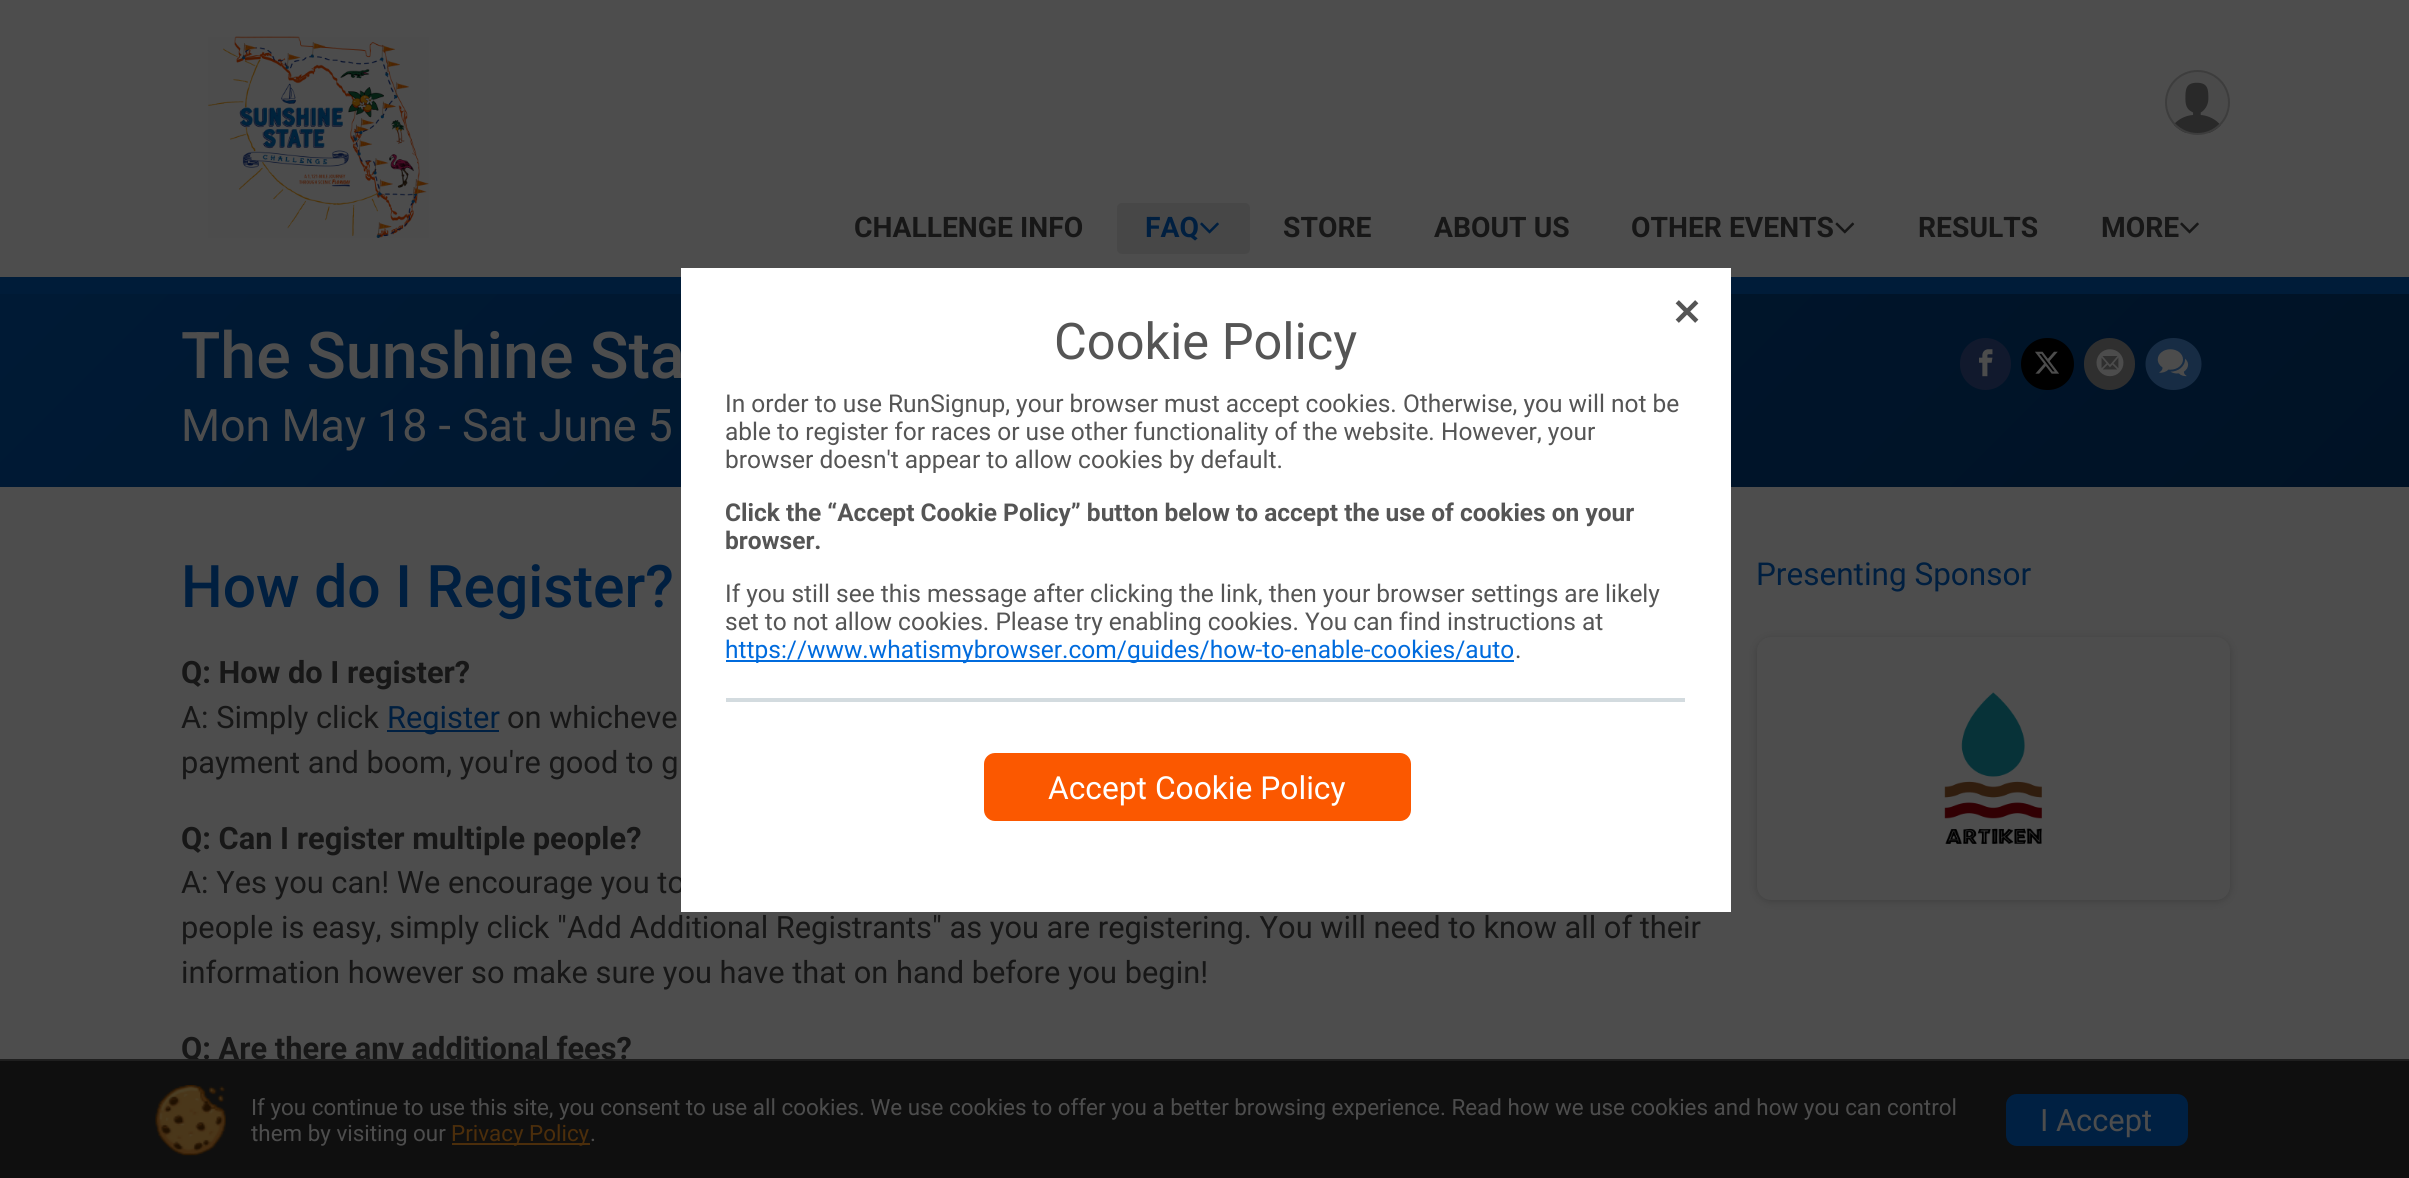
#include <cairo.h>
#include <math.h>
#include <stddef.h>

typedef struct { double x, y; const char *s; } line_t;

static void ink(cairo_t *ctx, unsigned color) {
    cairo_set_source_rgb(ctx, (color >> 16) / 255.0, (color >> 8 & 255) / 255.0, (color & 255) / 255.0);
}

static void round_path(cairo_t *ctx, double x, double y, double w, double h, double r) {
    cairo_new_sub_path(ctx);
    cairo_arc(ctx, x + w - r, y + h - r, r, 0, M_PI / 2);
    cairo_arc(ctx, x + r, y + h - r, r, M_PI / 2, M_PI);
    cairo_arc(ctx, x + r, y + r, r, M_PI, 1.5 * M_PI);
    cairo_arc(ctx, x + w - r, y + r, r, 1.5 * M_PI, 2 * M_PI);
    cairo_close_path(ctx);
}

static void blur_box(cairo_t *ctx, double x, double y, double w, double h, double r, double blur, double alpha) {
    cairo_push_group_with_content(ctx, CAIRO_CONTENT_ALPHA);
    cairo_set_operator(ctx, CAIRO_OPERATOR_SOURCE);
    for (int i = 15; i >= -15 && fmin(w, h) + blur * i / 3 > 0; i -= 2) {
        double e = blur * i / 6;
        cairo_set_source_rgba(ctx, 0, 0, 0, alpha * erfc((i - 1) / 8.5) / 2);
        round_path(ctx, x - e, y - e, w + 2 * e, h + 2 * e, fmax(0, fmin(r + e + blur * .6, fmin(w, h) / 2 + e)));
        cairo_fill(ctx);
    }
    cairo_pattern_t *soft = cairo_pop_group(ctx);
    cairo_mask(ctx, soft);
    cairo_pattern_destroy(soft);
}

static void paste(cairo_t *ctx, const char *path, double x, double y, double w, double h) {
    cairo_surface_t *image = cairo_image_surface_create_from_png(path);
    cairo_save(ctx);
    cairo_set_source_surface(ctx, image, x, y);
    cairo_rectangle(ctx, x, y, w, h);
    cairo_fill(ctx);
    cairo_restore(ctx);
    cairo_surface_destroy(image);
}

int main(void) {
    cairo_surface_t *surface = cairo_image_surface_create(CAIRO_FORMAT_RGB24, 2409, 1178);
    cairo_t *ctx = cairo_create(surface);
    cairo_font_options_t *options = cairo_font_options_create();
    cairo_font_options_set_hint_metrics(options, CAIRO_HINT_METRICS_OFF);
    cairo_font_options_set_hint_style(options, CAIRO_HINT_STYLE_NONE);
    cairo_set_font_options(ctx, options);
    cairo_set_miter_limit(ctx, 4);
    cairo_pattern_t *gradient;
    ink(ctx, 0x4D4D4D);
    cairo_paint(ctx);
    paste(ctx, "media/1.png", 208, 36, 221, 202);
    paste(ctx, "media/2.png", 2167, 72, 61, 61);
    cairo_arc(ctx, 2197.5, 102.5, 31.5, 0, 2 * M_PI);
    ink(ctx, 0x3D3D3D);
    cairo_stroke(ctx);
    cairo_select_font_face(ctx, "Roboto", CAIRO_FONT_SLANT_NORMAL, CAIRO_FONT_WEIGHT_BOLD);
    cairo_set_font_size(ctx, 28.25);
    ink(ctx, 0x171717);
    cairo_move_to(ctx, 854, 237);
    cairo_show_text(ctx, "CHALLENGE INFO");
    ink(ctx, 0x474747);
    round_path(ctx, 1117, 203, 133, 51, 5);
    cairo_fill(ctx);
    ink(ctx, 0x001F40);
    cairo_move_to(ctx, 1145, 237);
    cairo_show_text(ctx, "FAQ");
    paste(ctx, "media/3.png", 1200, 222, 19, 12);
    ink(ctx, 0x171717);
    {
        static const line_t items[] = {
            {1283, 237, "STORE"},
            {1434, 237, "ABOUT US"},
            {1631, 237, "OTHER EVENTS"},
        };
        for (size_t i = 0; i < sizeof items / sizeof *items; i++) {
            cairo_move_to(ctx, items[i].x, items[i].y);
            cairo_show_text(ctx, items[i].s);
        }
    }
    paste(ctx, "media/4.png", 1835, 222, 20, 12);
    cairo_move_to(ctx, 1918, 237);
    cairo_show_text(ctx, "RESULTS");
    cairo_move_to(ctx, 2101, 237);
    cairo_show_text(ctx, "MORE");
    paste(ctx, "media/5.png", 2180, 222, 19, 12);
    gradient = cairo_pattern_create_linear(1855, 1041, 554, -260);
    cairo_pattern_add_color_stop_rgba(gradient, 0, 0, 0.071, 0.145, 1);
    cairo_pattern_add_color_stop_rgba(gradient, 1, 0, 0.102, 0.208, 1);
    cairo_set_source(ctx, gradient);
    cairo_pattern_destroy(gradient);
    cairo_rectangle(ctx, 0, 294, 2409, 193);
    cairo_fill(ctx);
    ink(ctx, 0x001C39);
    cairo_rectangle(ctx, 0, 277, 2409, 17);
    cairo_fill(ctx);
    cairo_select_font_face(ctx, "Roboto Medium", CAIRO_FONT_SLANT_NORMAL, CAIRO_FONT_WEIGHT_NORMAL);
    cairo_set_font_size(ctx, 64.5);
    ink(ctx, 0x4D4D4D);
    cairo_move_to(ctx, 181, 378);
    cairo_show_text(ctx, "The Sunshine Sta");
    cairo_select_font_face(ctx, "Roboto", CAIRO_FONT_SLANT_NORMAL, CAIRO_FONT_WEIGHT_NORMAL);
    cairo_set_font_size(ctx, 44.75);
    cairo_move_to(ctx, 181, 441);
    cairo_show_text(ctx, "Mon May 18 - Sat June 5");
    ink(ctx, 0x11192D);
    round_path(ctx, 1960, 338, 51, 52, 25.5);
    cairo_fill(ctx);
    paste(ctx, "media/6.png", 1979, 349, 14, 28);
    ink(ctx, 0x000000);
    round_path(ctx, 2021, 338, 53, 52, 26);
    cairo_fill(ctx);
    paste(ctx, "media/7.png", 2035, 351, 24, 23);
    ink(ctx, 0x2F2F2F);
    round_path(ctx, 2084, 338, 51, 52, 25.5);
    cairo_fill(ctx);
    paste(ctx, "media/8.png", 2096, 349, 28, 28);
    ink(ctx, 0x172C44);
    cairo_new_path(ctx);
    cairo_move_to(ctx, 2173.5, 338);
    cairo_curve_to(ctx, 2189, 338, 2201.5, 349.5, 2201.5, 364);
    cairo_curve_to(ctx, 2201.5, 378.5, 2189, 390, 2173.5, 390);
    cairo_curve_to(ctx, 2158, 390, 2145.5, 378.5, 2145.5, 364);
    cairo_curve_to(ctx, 2145.5, 349.5, 2158, 338, 2173.5, 338);
    cairo_close_path(ctx);
    cairo_fill(ctx);
    paste(ctx, "media/9.png", 2157, 349, 32, 28);
    cairo_select_font_face(ctx, "Roboto Medium", CAIRO_FONT_SLANT_NORMAL, CAIRO_FONT_WEIGHT_NORMAL);
    cairo_set_font_size(ctx, 58.75);
    ink(ctx, 0x001F40);
    cairo_move_to(ctx, 181, 607);
    cairo_show_text(ctx, "How do I Register?");
    cairo_select_font_face(ctx, "Roboto", CAIRO_FONT_SLANT_NORMAL, CAIRO_FONT_WEIGHT_BOLD);
    cairo_set_font_size(ctx, 30.8);
    ink(ctx, 0x171717);
    cairo_move_to(ctx, 181, 683);
    cairo_show_text(ctx, "Q: How do I register?");
    cairo_select_font_face(ctx, "Roboto", CAIRO_FONT_SLANT_NORMAL, CAIRO_FONT_WEIGHT_NORMAL);
    cairo_move_to(ctx, 181, 728);
    cairo_show_text(ctx, "A: Simply click");
    ink(ctx, 0x002042);
    cairo_rectangle(ctx, 387, 730, 112, 2);
    cairo_fill(ctx);
    ink(ctx, 0x001F40);
    cairo_move_to(ctx, 387, 728);
    cairo_show_text(ctx, "Register");
    ink(ctx, 0x171717);
    cairo_move_to(ctx, 507, 728);
    cairo_show_text(ctx, "on whicheve");
    cairo_move_to(ctx, 181, 773);
    cairo_show_text(ctx, "payment and boom, you're good to g");
    cairo_select_font_face(ctx, "Roboto", CAIRO_FONT_SLANT_NORMAL, CAIRO_FONT_WEIGHT_BOLD);
    cairo_move_to(ctx, 181, 849);
    cairo_show_text(ctx, "Q: Can I register multiple people?");
    cairo_select_font_face(ctx, "Roboto", CAIRO_FONT_SLANT_NORMAL, CAIRO_FONT_WEIGHT_NORMAL);
    {
        static const line_t items[] = {
            {181, 893, "A: Yes you can! We encourage you to"},
            {181, 938, "people is easy, simply click \"Add Additional Registrants\" as you are registering. You will need to know all of their"},
            {181, 983, "information however so make sure you have that on hand before you begin!"},
        };
        for (size_t i = 0; i < sizeof items / sizeof *items; i++) {
            cairo_move_to(ctx, items[i].x, items[i].y);
            cairo_show_text(ctx, items[i].s);
        }
    }
    cairo_select_font_face(ctx, "Roboto", CAIRO_FONT_SLANT_NORMAL, CAIRO_FONT_WEIGHT_BOLD);
    cairo_move_to(ctx, 181, 1059);
    cairo_show_text(ctx, "Q: Are there any additional fees?");
    cairo_select_font_face(ctx, "Roboto", CAIRO_FONT_SLANT_NORMAL, CAIRO_FONT_WEIGHT_NORMAL);
    cairo_set_font_size(ctx, 31.5);
    ink(ctx, 0x001F40);
    cairo_move_to(ctx, 1756, 585);
    cairo_show_text(ctx, "Presenting Sponsor");
    ink(ctx, 0x000000);
    blur_box(ctx, 1757, 639, 473, 262, 14, 4.5, 0.2);
    ink(ctx, 0x4D4D4D);
    round_path(ctx, 1757, 637, 473, 263, 14);
    cairo_fill(ctx);
    paste(ctx, "media/10.png", 1944, 692, 98, 152);
    cairo_rectangle(ctx, 682, 269, 1048, 642);
    ink(ctx, 0xFFFFFF);
    cairo_stroke(ctx);
    cairo_rectangle(ctx, 683, 270, 1046, 640);
    cairo_fill(ctx);
    paste(ctx, "media/11.png", 1675, 300, 24, 23);
    cairo_set_font_size(ctx, 50.5);
    ink(ctx, 0x555555);
    cairo_move_to(ctx, 1054, 359);
    cairo_show_text(ctx, "Cookie Policy");
    cairo_set_font_size(ctx, 24.5);
    {
        static const line_t items[] = {
            {725, 412, "In order to use RunSignup, your browser must accept cookies. Otherwise, you will not be"},
            {725, 440, "able to register for races or use other functionality of the website. However, your"},
            {725, 468, "browser doesn't appear to allow cookies by default."},
        };
        for (size_t i = 0; i < sizeof items / sizeof *items; i++) {
            cairo_move_to(ctx, items[i].x, items[i].y);
            cairo_show_text(ctx, items[i].s);
        }
    }
    cairo_select_font_face(ctx, "Roboto", CAIRO_FONT_SLANT_NORMAL, CAIRO_FONT_WEIGHT_BOLD);
    cairo_move_to(ctx, 725, 521);
    cairo_show_text(ctx, "Click the “Accept Cookie Policy” button below to accept the use of cookies on your");
    cairo_move_to(ctx, 725, 549);
    cairo_show_text(ctx, "browser.");
    cairo_select_font_face(ctx, "Roboto", CAIRO_FONT_SLANT_NORMAL, CAIRO_FONT_WEIGHT_NORMAL);
    cairo_move_to(ctx, 725, 602);
    cairo_show_text(ctx, "If you still see this message after clicking the link, then your browser settings are likely");
    cairo_move_to(ctx, 725, 630);
    cairo_show_text(ctx, "set to not allow cookies. Please try enabling cookies. You can find instructions at");
    ink(ctx, 0x006BDD);
    cairo_rectangle(ctx, 726, 660, 788, 2);
    cairo_fill(ctx);
    cairo_move_to(ctx, 725, 658);
    cairo_show_text(ctx, "https://www.whatismybrowser.com/guides/how-to-enable-cookies/auto");
    ink(ctx, 0x555555);
    cairo_move_to(ctx, 1515, 658);
    cairo_show_text(ctx, ".");
    ink(ctx, 0xD3DBDF);
    cairo_rectangle(ctx, 726, 698, 959, 4);
    cairo_fill(ctx);
    ink(ctx, 0xFB5800);
    round_path(ctx, 984, 753, 427, 68, 11);
    cairo_fill(ctx);
    cairo_set_font_size(ctx, 31.75);
    ink(ctx, 0xFFFFFF);
    cairo_move_to(ctx, 1048, 799);
    cairo_show_text(ctx, "Accept Cookie Policy");
    ink(ctx, 0x0F0F0F);
    cairo_rectangle(ctx, 0, 1061, 2409, 117);
    cairo_fill(ctx);
    ink(ctx, 0x1F1F1F);
    cairo_rectangle(ctx, 0, 1059, 2409, 2);
    cairo_fill(ctx);
    paste(ctx, "media/12.png", 155, 1085, 71, 71);
    cairo_set_font_size(ctx, 22.4);
    ink(ctx, 0x4D4D4D);
    cairo_move_to(ctx, 251, 1115);
    cairo_show_text(ctx, "If you continue to use this site, you consent to use all cookies. We use cookies to offer you a better browsing experience. Read how we use cookies and how you can control");
    cairo_move_to(ctx, 251, 1141);
    cairo_show_text(ctx, "them by visiting our");
    ink(ctx, 0x4C2E0B);
    cairo_rectangle(ctx, 452, 1143, 138, 2);
    cairo_fill(ctx);
    cairo_move_to(ctx, 451, 1141);
    cairo_show_text(ctx, "Privacy Policy");
    ink(ctx, 0x4D4D4D);
    cairo_move_to(ctx, 590, 1141);
    cairo_show_text(ctx, ".");
    ink(ctx, 0x002042);
    round_path(ctx, 2006, 1094, 182, 52, 11);
    cairo_fill(ctx);
    cairo_set_font_size(ctx, 30.8);
    ink(ctx, 0x4D4D4D);
    cairo_move_to(ctx, 2040, 1131);
    cairo_show_text(ctx, "I Accept");
    cairo_surface_write_to_png(surface, "image.png");
    cairo_font_options_destroy(options);
    cairo_destroy(ctx);
    cairo_surface_destroy(surface);
    return 0;
}
